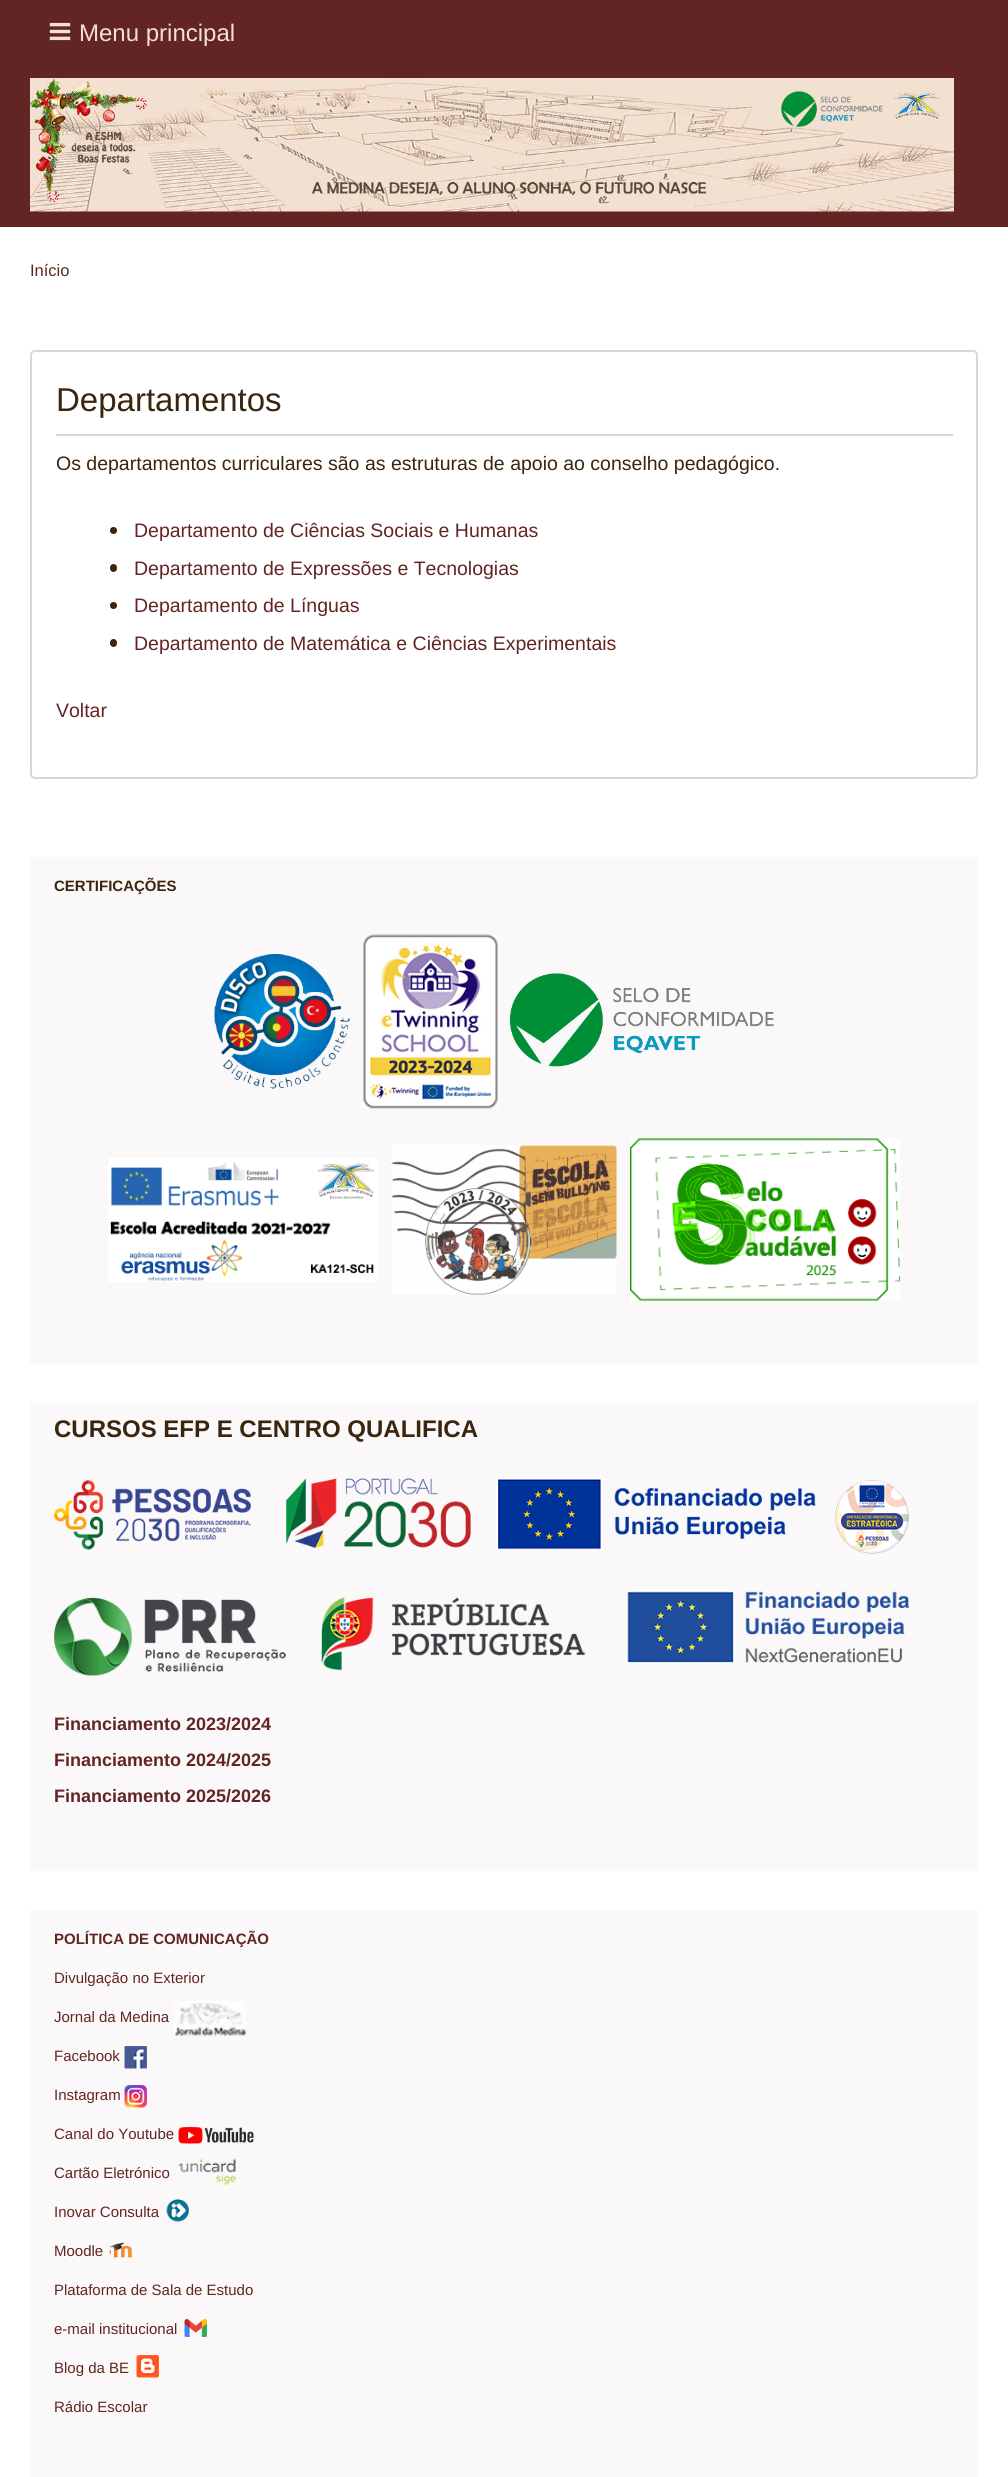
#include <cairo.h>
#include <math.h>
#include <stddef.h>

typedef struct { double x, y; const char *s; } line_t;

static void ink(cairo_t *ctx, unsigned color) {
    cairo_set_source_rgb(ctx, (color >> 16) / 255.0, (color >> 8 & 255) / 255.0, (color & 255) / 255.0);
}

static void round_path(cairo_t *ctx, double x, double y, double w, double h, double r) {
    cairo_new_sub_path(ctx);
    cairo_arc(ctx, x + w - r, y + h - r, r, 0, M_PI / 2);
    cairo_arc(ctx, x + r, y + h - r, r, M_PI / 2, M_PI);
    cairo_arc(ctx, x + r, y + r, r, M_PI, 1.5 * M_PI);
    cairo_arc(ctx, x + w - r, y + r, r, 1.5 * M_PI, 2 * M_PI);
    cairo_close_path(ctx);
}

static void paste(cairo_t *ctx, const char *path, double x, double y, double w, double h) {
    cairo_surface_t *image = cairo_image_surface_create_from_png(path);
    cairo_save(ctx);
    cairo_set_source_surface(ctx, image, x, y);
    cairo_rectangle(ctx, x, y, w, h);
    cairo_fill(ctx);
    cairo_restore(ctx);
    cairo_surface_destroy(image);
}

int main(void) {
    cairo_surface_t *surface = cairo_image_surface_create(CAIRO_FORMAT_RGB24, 1008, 2477);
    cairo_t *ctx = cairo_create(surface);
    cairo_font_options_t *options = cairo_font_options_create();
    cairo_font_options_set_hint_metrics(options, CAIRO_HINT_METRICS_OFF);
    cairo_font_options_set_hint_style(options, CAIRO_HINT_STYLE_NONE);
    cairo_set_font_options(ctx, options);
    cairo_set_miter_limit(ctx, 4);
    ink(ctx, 0x632523);
    cairo_paint(ctx);
    paste(ctx, "media/1.png", 49, 22, 22, 19);
    cairo_select_font_face(ctx, "Liberation Sans", CAIRO_FONT_SLANT_NORMAL, CAIRO_FONT_WEIGHT_NORMAL);
    cairo_set_font_size(ctx, 24);
    ink(ctx, 0xF2E1D1);
    cairo_move_to(ctx, 79, 41);
    cairo_show_text(ctx, "Menu principal");
    paste(ctx, "media/2.png", 30, 78, 924, 134);
    ink(ctx, 0xFFFFFF);
    cairo_rectangle(ctx, 0, 227, 1008, 2250);
    cairo_fill(ctx);
    cairo_set_font_size(ctx, 16.5);
    ink(ctx, 0x632523);
    cairo_move_to(ctx, 30, 276);
    cairo_show_text(ctx, "Início");
    round_path(ctx, 31, 351, 946, 427, 4);
    ink(ctx, 0xDFD3D3);
    cairo_stroke(ctx);
    cairo_rectangle(ctx, 56, 434, 897, 2);
    cairo_fill(ctx);
    cairo_set_font_size(ctx, 33);
    ink(ctx, 0x3A250F);
    cairo_move_to(ctx, 56, 411);
    cairo_show_text(ctx, "Departamentos");
    cairo_set_font_size(ctx, 19.5);
    cairo_move_to(ctx, 56, 470);
    cairo_show_text(ctx, "Os departamentos curriculares são as estruturas de apoio ao conselho pedagógico.");
    cairo_new_path(ctx);
    cairo_arc(ctx, 113.5, 530.5, 3.5, 0, 2 * M_PI);
    cairo_fill(ctx);
    ink(ctx, 0x632523);
    cairo_move_to(ctx, 134, 537);
    cairo_show_text(ctx, "Departamento de Ciências Sociais e Humanas");
    ink(ctx, 0x3A250F);
    round_path(ctx, 110, 564, 7, 8, 3.5);
    cairo_fill(ctx);
    ink(ctx, 0x632523);
    cairo_move_to(ctx, 134, 575);
    cairo_show_text(ctx, "Departamento de Expressões e Tecnologias");
    ink(ctx, 0x3A250F);
    cairo_new_path(ctx);
    cairo_arc(ctx, 113.5, 605.5, 3.5, 0, 2 * M_PI);
    cairo_fill(ctx);
    ink(ctx, 0x632523);
    cairo_move_to(ctx, 134, 612);
    cairo_show_text(ctx, "Departamento de Línguas");
    ink(ctx, 0x3A250F);
    round_path(ctx, 110, 639, 7, 8, 3.5);
    cairo_fill(ctx);
    ink(ctx, 0x632523);
    cairo_move_to(ctx, 134, 650);
    cairo_show_text(ctx, "Departamento de Matemática e Ciências Experimentais");
    cairo_move_to(ctx, 56, 717);
    cairo_show_text(ctx, "Voltar");
    ink(ctx, 0xFAF8F8);
    cairo_rectangle(ctx, 30, 857, 948, 507);
    cairo_fill(ctx);
    cairo_select_font_face(ctx, "Liberation Sans", CAIRO_FONT_SLANT_NORMAL, CAIRO_FONT_WEIGHT_BOLD);
    cairo_set_font_size(ctx, 15);
    ink(ctx, 0x3A250F);
    cairo_move_to(ctx, 54, 891);
    cairo_show_text(ctx, "CERTIFICAÇÕES");
    paste(ctx, "media/3.png", 214, 954, 136, 135);
    paste(ctx, "media/4.png", 363, 934, 135, 175);
    paste(ctx, "media/5.png", 510, 973, 264, 94);
    paste(ctx, "media/6.png", 108, 1158, 270, 124);
    paste(ctx, "media/7.png", 391, 1145, 226, 150);
    paste(ctx, "media/8.png", 630, 1138, 270, 163);
    ink(ctx, 0xFAF8F8);
    cairo_rectangle(ctx, 30, 1403, 948, 468);
    cairo_fill(ctx);
    cairo_set_font_size(ctx, 24);
    ink(ctx, 0x3A250F);
    cairo_move_to(ctx, 54, 1437);
    cairo_show_text(ctx, "CURSOS EFP E CENTRO QUALIFICA");
    paste(ctx, "media/9.png", 54, 1478, 855, 76);
    paste(ctx, "media/10.png", 54, 1590, 855, 86);
    cairo_set_font_size(ctx, 18);
    ink(ctx, 0x632523);
    {
        static const line_t items[] = {
            {54, 1730, "Financiamento 2023/2024"},
            {54, 1766, "Financiamento 2024/2025"},
            {54, 1802, "Financiamento 2025/2026"},
        };
        for (size_t i = 0; i < sizeof items / sizeof *items; i++) {
            cairo_move_to(ctx, items[i].x, items[i].y);
            cairo_show_text(ctx, items[i].s);
        }
    }
    ink(ctx, 0xFAF8F8);
    cairo_rectangle(ctx, 30, 1910, 948, 567);
    cairo_fill(ctx);
    cairo_set_font_size(ctx, 15);
    ink(ctx, 0x632523);
    cairo_move_to(ctx, 54, 1944);
    cairo_show_text(ctx, "POLÍTICA DE COMUNICAÇÃO");
    cairo_select_font_face(ctx, "Liberation Sans", CAIRO_FONT_SLANT_NORMAL, CAIRO_FONT_WEIGHT_NORMAL);
    cairo_move_to(ctx, 54, 1983);
    cairo_show_text(ctx, "Divulgação no Exterior");
    cairo_move_to(ctx, 54, 2022);
    cairo_show_text(ctx, "Jornal da Medina");
    paste(ctx, "media/11.png", 174, 2001, 72, 35);
    cairo_move_to(ctx, 54, 2061);
    cairo_show_text(ctx, "Facebook");
    paste(ctx, "media/12.png", 124, 2046, 23, 23);
    cairo_move_to(ctx, 54, 2100);
    cairo_show_text(ctx, "Instagram");
    paste(ctx, "media/13.png", 124, 2085, 23, 23);
    cairo_move_to(ctx, 54, 2139);
    cairo_show_text(ctx, "Canal do Youtube");
    paste(ctx, "media/14.png", 178, 2127, 76, 17);
    cairo_move_to(ctx, 54, 2178);
    cairo_show_text(ctx, "Cartão Eletrónico");
    paste(ctx, "media/15.png", 178, 2158, 58, 27);
    cairo_move_to(ctx, 54, 2217);
    cairo_show_text(ctx, "Inovar Consulta");
    paste(ctx, "media/16.png", 166, 2199, 23, 23);
    cairo_move_to(ctx, 54, 2256);
    cairo_show_text(ctx, "Moodle");
    paste(ctx, "media/17.png", 109, 2242, 23, 16);
    cairo_move_to(ctx, 54, 2295);
    cairo_show_text(ctx, "Plataforma de Sala de Estudo");
    cairo_move_to(ctx, 54, 2334);
    cairo_show_text(ctx, "e-mail institucional");
    paste(ctx, "media/18.png", 184, 2319, 23, 18);
    cairo_move_to(ctx, 54, 2373);
    cairo_show_text(ctx, "Blog da BE");
    paste(ctx, "media/19.png", 136, 2355, 23, 23);
    cairo_move_to(ctx, 54, 2412);
    cairo_show_text(ctx, "Rádio Escolar");
    cairo_surface_write_to_png(surface, "image.png");
    cairo_font_options_destroy(options);
    cairo_destroy(ctx);
    cairo_surface_destroy(surface);
    return 0;
}
